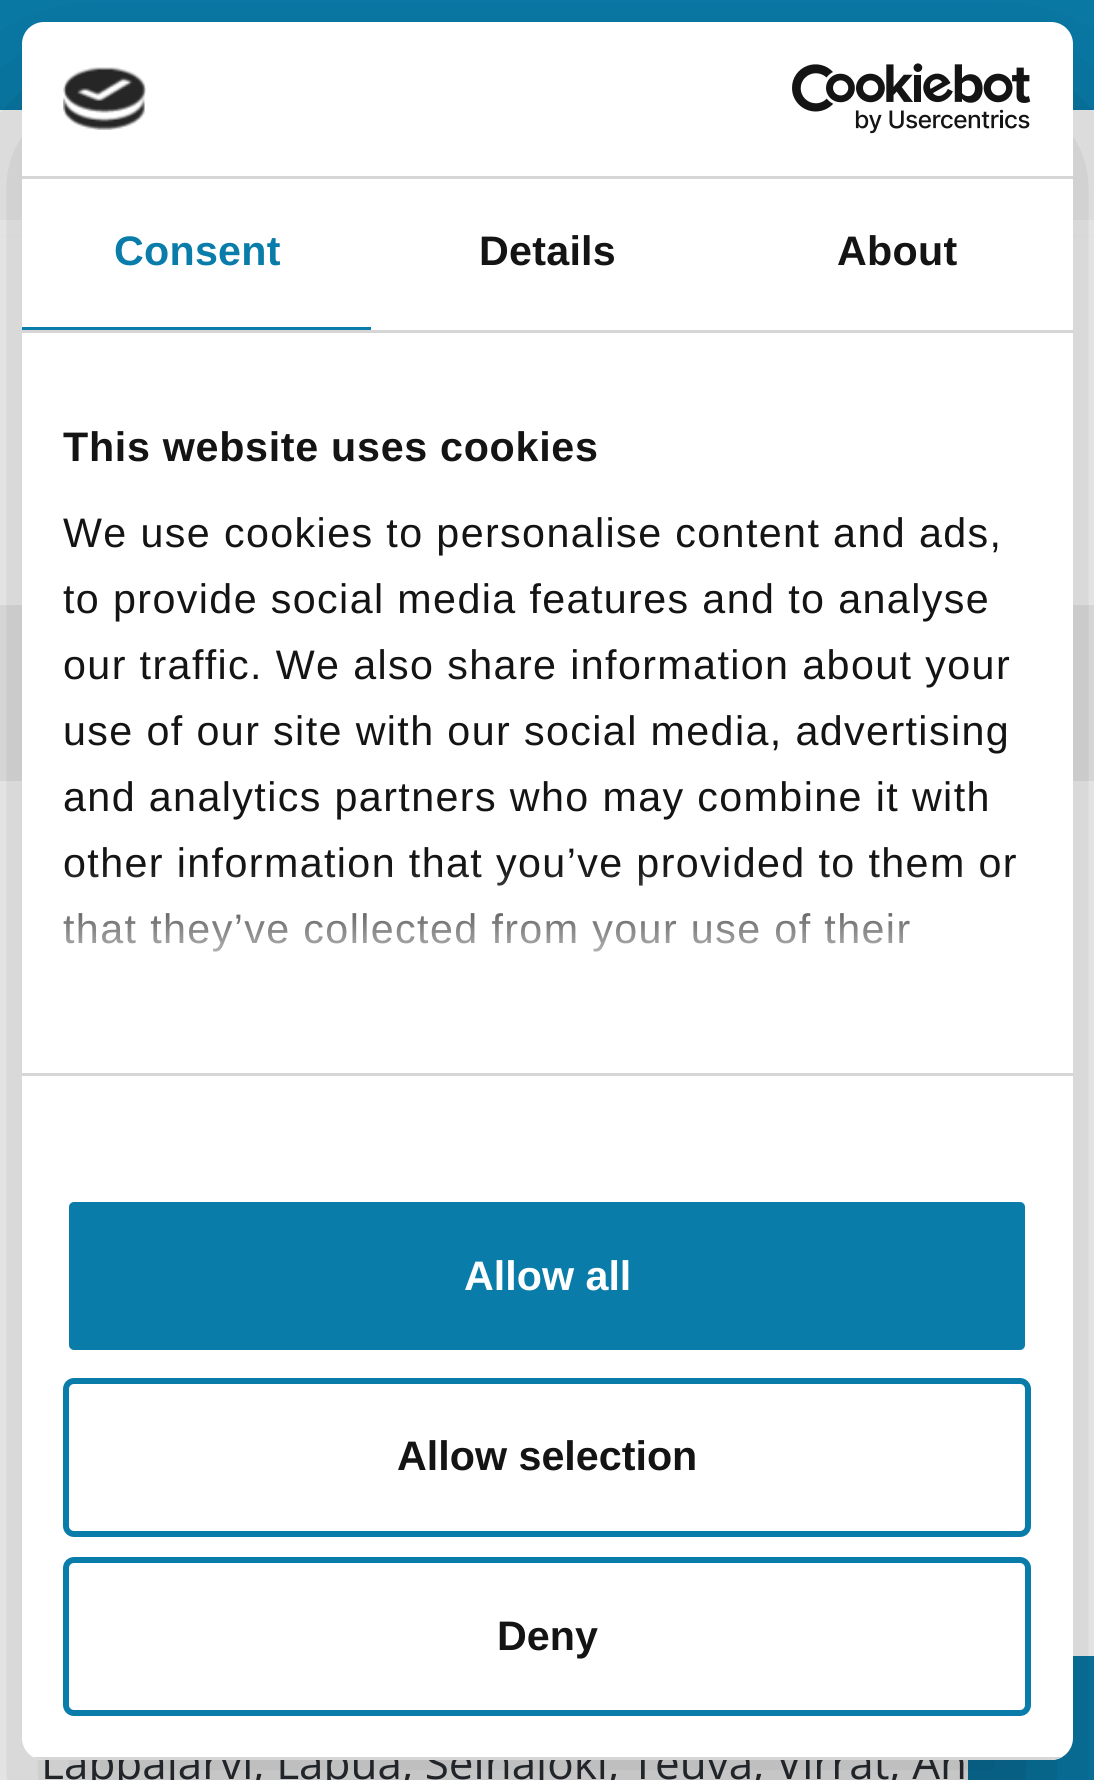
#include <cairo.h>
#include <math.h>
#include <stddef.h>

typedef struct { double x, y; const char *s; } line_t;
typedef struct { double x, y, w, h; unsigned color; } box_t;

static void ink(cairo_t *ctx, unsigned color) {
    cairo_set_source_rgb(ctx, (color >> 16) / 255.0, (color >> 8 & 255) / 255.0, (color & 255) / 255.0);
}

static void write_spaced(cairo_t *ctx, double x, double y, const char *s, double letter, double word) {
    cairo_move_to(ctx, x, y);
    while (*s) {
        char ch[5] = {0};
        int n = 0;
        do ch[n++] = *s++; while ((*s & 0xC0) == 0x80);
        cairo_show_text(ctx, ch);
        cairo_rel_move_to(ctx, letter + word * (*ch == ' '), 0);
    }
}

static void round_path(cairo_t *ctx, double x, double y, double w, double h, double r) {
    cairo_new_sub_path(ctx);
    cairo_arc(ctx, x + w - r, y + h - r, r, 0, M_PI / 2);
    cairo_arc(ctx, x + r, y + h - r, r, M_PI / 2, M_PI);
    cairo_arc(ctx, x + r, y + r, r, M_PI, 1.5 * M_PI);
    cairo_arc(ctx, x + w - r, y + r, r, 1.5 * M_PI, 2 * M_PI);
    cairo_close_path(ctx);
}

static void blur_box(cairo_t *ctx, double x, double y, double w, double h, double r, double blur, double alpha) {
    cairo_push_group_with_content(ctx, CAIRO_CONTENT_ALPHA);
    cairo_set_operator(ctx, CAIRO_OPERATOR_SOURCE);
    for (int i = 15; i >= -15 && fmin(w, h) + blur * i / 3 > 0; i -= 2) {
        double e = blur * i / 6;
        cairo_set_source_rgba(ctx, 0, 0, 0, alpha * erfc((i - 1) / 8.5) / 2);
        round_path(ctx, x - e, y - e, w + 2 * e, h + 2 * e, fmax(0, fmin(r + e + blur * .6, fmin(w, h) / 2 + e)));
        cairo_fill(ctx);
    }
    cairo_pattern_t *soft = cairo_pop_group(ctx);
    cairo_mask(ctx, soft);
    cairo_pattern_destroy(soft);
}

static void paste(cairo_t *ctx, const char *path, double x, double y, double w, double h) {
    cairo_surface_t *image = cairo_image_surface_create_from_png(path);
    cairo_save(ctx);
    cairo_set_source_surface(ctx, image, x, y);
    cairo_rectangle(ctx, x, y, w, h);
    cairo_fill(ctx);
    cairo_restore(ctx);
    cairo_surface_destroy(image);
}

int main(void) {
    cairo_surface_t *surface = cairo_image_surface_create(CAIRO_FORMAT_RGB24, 1094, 1780);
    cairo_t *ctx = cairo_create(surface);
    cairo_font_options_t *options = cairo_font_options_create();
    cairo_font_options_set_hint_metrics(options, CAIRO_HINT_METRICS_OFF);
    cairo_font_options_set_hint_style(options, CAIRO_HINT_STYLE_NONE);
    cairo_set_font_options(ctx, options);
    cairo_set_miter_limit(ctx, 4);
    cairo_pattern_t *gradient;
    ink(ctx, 0xFFFFFF);
    cairo_paint(ctx);
    ink(ctx, 0x097CA9);
    cairo_rectangle(ctx, 0, 0, 1094, 110);
    cairo_fill(ctx);
    ink(ctx, 0x000000);
    blur_box(ctx, 0, 116, 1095, 110, 0, 5.5, 0.2);
    {
        static const box_t items[] = {
            {0, 110, 1094, 110, 0xF7F7F7},
            {0, 220, 1094, 15, 0xFFFFFF},
            {0, 605, 1094, 176, 0xEFEFEF},
            {968, 1656, 126, 124, 0x097CA9},
        };
        for (size_t i = 0; i < sizeof items / sizeof *items; i++) {
            ink(ctx, items[i].color);
            cairo_rectangle(ctx, items[i].x, items[i].y, items[i].w, items[i].h);
            cairo_fill(ctx);
        }
    }
    ink(ctx, 0x000000);
    blur_box(ctx, 22, 110, 1051, 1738, 22, 93.5, 0.3);
    cairo_select_font_face(ctx, "Open Sans", CAIRO_FONT_SLANT_NORMAL, CAIRO_FONT_WEIGHT_NORMAL);
    cairo_set_font_size(ctx, 44);
    ink(ctx, 0x212529);
    cairo_move_to(ctx, 41, 1779);
    cairo_show_text(ctx, "Lappajärvi, Lapua, Seinäjoki, Teuva, Virrat, Äh");
    ink(ctx, 0xFFFFFF);
    round_path(ctx, 22, 22, 1051, 1738, 22);
    cairo_fill(ctx);
    ink(ctx, 0xD6D6D6);
    cairo_rectangle(ctx, 22, 176, 1051, 3);
    cairo_fill(ctx);
    paste(ctx, "media/1.png", 63, 67, 83, 63);
    paste(ctx, "media/2.png", 792, 63, 239, 71);
    cairo_rectangle(ctx, 22, 330, 1051, 3);
    cairo_fill(ctx);
    ink(ctx, 0x097CA9);
    cairo_rectangle(ctx, 22, 327, 349, 3);
    cairo_fill(ctx);
    cairo_select_font_face(ctx, "Liberation Sans", CAIRO_FONT_SLANT_NORMAL, CAIRO_FONT_WEIGHT_BOLD);
    cairo_set_font_size(ctx, 41.25);
    write_spaced(ctx, 114, 265, "Consent", 0.25, 0);
    ink(ctx, 0x141414);
    write_spaced(ctx, 479, 265, "Details", 0.25, 0);
    write_spaced(ctx, 837, 265, "About", 0.25, 0);
    ink(ctx, 0xD6D6D6);
    cairo_rectangle(ctx, 22, 1073, 1051, 3);
    cairo_fill(ctx);
    ink(ctx, 0x141414);
    write_spaced(ctx, 63, 461, "This website uses cookies", 0.7, 0);
    cairo_select_font_face(ctx, "Liberation Sans", CAIRO_FONT_SLANT_NORMAL, CAIRO_FONT_WEIGHT_NORMAL);
    {
        static const line_t items[] = {
            {63, 547, "We use cookies to personalise content and ads,"},
            {63, 613, "to provide social media features and to analyse"},
            {63, 679, "our traffic. We also share information about your"},
            {63, 745, "use of our site with our social media, advertising"},
            {63, 811, "and analytics partners who may combine it with"},
            {63, 877, "other information that you’ve provided to them or"},
            {63, 943, "that they’ve collected from your use of their"},
        };
        for (size_t i = 0; i < sizeof items / sizeof *items; i++) {
            write_spaced(ctx, items[i].x, items[i].y, items[i].s, 1.38, 0);
        }
    }
    gradient = cairo_pattern_create_linear(529, 1073, 529, 866);
    cairo_pattern_add_color_stop_rgba(gradient, 0, 1, 1, 1, 1);
    cairo_pattern_add_color_stop_rgba(gradient, 0.5, 1, 1, 1, 0.8);
    cairo_pattern_add_color_stop_rgba(gradient, 1, 1, 1, 1, 0);
    cairo_set_source(ctx, gradient);
    cairo_pattern_destroy(gradient);
    cairo_rectangle(ctx, 63, 869, 947, 83);
    cairo_fill(ctx);
    cairo_save(ctx);
    round_path(ctx, 22, 22, 1051, 1738, 22);
    cairo_clip(ctx);
    ink(ctx, 0xD6D6D6);
    cairo_rectangle(ctx, 33, 1757, 1029, 3);
    cairo_fill(ctx);
    cairo_restore(ctx);
    ink(ctx, 0x097CA9);
    round_path(ctx, 66, 1199, 962, 154, 8);
    cairo_fill_preserve(ctx);
    ink(ctx, 0xFFFFFF);
    cairo_set_line_width(ctx, 6);
    cairo_stroke(ctx);
    cairo_select_font_face(ctx, "Liberation Sans", CAIRO_FONT_SLANT_NORMAL, CAIRO_FONT_WEIGHT_BOLD);
    cairo_move_to(ctx, 464, 1290);
    cairo_show_text(ctx, "Allow all");
    round_path(ctx, 66, 1381, 962, 153, 8);
    ink(ctx, 0x097CA9);
    cairo_stroke(ctx);
    ink(ctx, 0x141414);
    cairo_move_to(ctx, 397, 1470);
    cairo_show_text(ctx, "Allow selection");
    round_path(ctx, 66, 1560, 962, 153, 8);
    ink(ctx, 0x097CA9);
    cairo_stroke(ctx);
    ink(ctx, 0x141414);
    cairo_move_to(ctx, 497, 1650);
    cairo_show_text(ctx, "Deny");
    cairo_surface_write_to_png(surface, "image.png");
    cairo_font_options_destroy(options);
    cairo_destroy(ctx);
    cairo_surface_destroy(surface);
    return 0;
}
